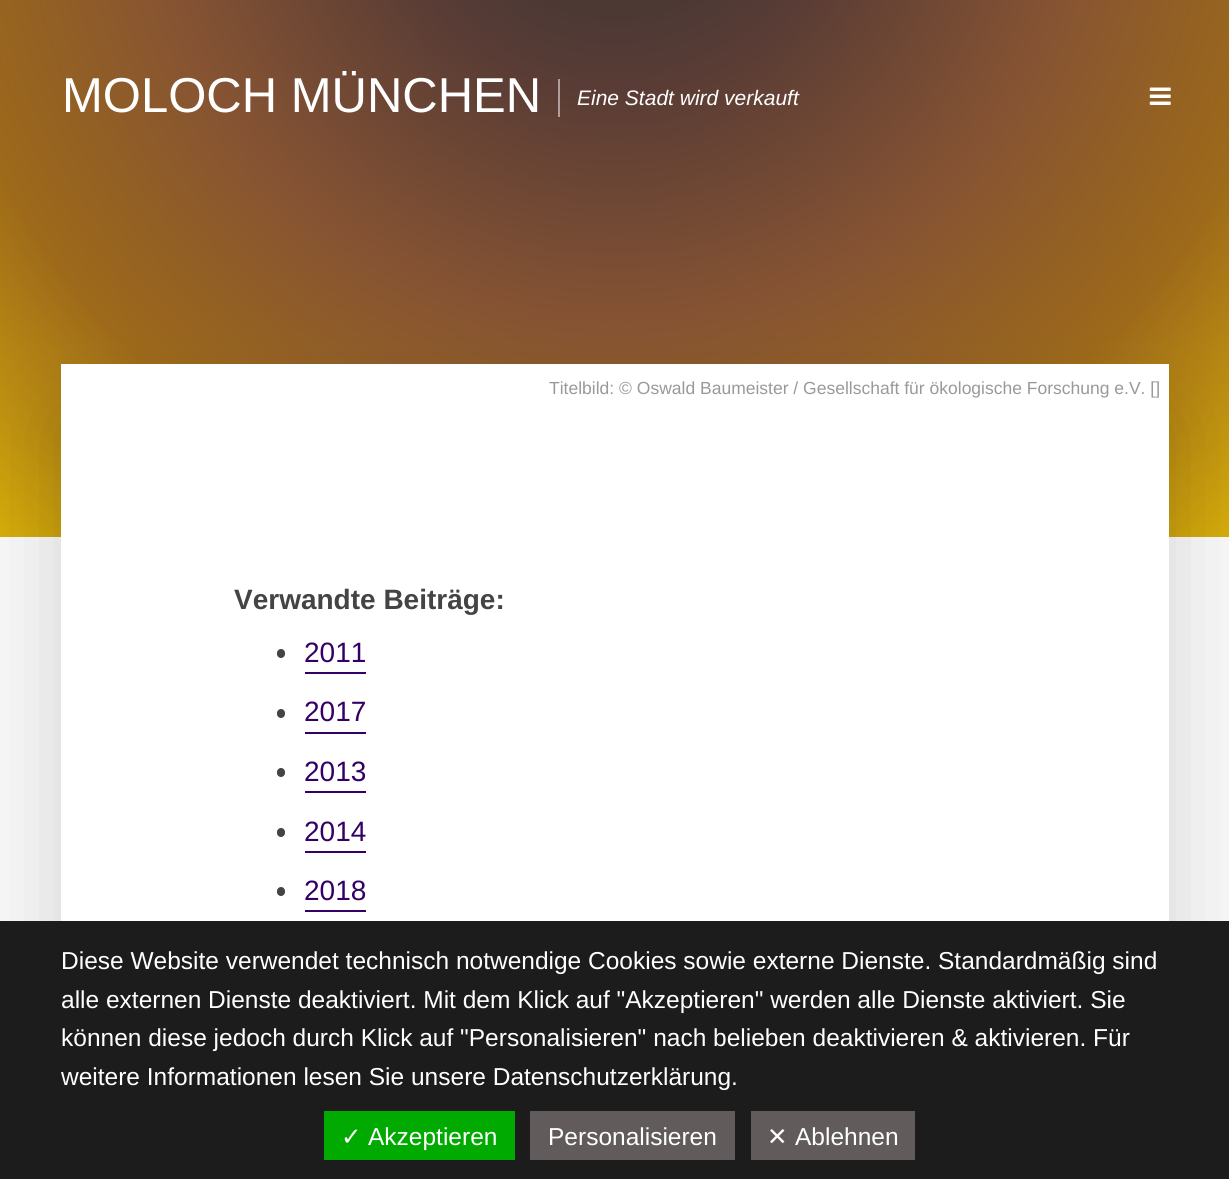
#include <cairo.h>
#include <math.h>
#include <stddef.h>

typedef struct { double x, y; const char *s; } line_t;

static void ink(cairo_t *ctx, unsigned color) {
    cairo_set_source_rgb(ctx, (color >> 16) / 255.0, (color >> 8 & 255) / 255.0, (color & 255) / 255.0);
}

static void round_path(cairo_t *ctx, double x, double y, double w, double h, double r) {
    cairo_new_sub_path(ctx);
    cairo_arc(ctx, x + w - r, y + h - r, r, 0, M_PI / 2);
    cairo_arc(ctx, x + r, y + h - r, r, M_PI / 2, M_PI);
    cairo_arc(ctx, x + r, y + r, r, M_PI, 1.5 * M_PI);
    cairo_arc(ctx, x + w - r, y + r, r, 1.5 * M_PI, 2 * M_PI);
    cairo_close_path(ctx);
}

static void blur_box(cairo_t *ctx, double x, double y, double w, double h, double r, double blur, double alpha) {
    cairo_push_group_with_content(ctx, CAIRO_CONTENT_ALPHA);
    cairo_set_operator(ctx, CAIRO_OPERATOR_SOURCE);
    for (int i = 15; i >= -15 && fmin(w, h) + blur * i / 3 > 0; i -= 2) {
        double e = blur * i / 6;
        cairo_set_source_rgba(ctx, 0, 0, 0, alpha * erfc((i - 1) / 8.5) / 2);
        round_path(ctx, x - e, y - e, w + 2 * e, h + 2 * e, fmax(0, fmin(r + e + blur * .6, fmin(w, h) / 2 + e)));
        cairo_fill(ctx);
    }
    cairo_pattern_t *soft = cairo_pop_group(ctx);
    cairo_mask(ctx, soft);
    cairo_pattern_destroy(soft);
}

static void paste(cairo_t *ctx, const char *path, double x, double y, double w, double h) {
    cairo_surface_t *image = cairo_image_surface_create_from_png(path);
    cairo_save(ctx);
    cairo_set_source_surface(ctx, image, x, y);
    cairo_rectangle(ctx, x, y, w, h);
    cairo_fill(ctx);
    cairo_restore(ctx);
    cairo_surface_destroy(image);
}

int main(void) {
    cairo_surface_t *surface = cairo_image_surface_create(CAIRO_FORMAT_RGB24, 1229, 1179);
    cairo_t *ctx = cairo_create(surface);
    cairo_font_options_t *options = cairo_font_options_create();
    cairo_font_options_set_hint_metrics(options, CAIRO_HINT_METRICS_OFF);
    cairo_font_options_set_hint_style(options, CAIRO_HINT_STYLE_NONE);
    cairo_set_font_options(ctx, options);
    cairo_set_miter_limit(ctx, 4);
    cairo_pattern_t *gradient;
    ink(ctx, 0xFFFFFF);
    cairo_paint(ctx);
    gradient = cairo_pattern_create_radial(615, -139, 0, 615, -139, 914);
    cairo_pattern_add_color_stop_rgba(gradient, 0, 0.2, 0.2, 0.2, 1);
    cairo_pattern_add_color_stop_rgba(gradient, 0.25, 0.349, 0.235, 0.208, 1);
    cairo_pattern_add_color_stop_rgba(gradient, 0.5, 0.522, 0.325, 0.2, 1);
    cairo_pattern_add_color_stop_rgba(gradient, 0.75, 0.616, 0.412, 0.102, 1);
    cairo_pattern_add_color_stop_rgba(gradient, 1, 0.839, 0.678, 0.039, 1);
    cairo_set_source(ctx, gradient);
    cairo_pattern_destroy(gradient);
    cairo_rectangle(ctx, 0, 0, 1229, 537);
    cairo_fill(ctx);
    gradient = cairo_pattern_create_radial(615, -139, 0, 615, -139, 914);
    cairo_pattern_add_color_stop_rgba(gradient, 0, 0.6, 0.6, 0.6, 1);
    cairo_pattern_add_color_stop_rgba(gradient, 0.25, 0.675, 0.62, 0.604, 1);
    cairo_pattern_add_color_stop_rgba(gradient, 0.5, 0.761, 0.663, 0.6, 1);
    cairo_pattern_add_color_stop_rgba(gradient, 0.75, 0.808, 0.706, 0.553, 1);
    cairo_pattern_add_color_stop_rgba(gradient, 1, 0.922, 0.839, 0.522, 1);
    cairo_set_source(ctx, gradient);
    cairo_pattern_destroy(gradient);
    cairo_rectangle(ctx, 558, 79, 2, 38);
    cairo_fill(ctx);
    cairo_select_font_face(ctx, "Liberation Sans", CAIRO_FONT_SLANT_NORMAL, CAIRO_FONT_WEIGHT_NORMAL);
    cairo_set_font_size(ctx, 49);
    ink(ctx, 0xFFFFFF);
    cairo_move_to(ctx, 62, 112);
    cairo_show_text(ctx, "MOLOCH MÜNCHEN");
    cairo_select_font_face(ctx, "Liberation Sans", CAIRO_FONT_SLANT_ITALIC, CAIRO_FONT_WEIGHT_NORMAL);
    cairo_set_font_size(ctx, 21);
    cairo_move_to(ctx, 577, 105);
    cairo_show_text(ctx, "Eine Stadt wird verkauft");
    paste(ctx, "media/1.png", 1149, 87, 22, 18);
    ink(ctx, 0xF8F8F8);
    cairo_rectangle(ctx, 0, 537, 1229, 384);
    cairo_fill(ctx);
    ink(ctx, 0x010101);
    blur_box(ctx, 61, 417, 1108, 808, 0, 44, 0.15);
    ink(ctx, 0xFFFFFF);
    cairo_rectangle(ctx, 61, 364, 1108, 557);
    cairo_fill(ctx);
    cairo_select_font_face(ctx, "Liberation Sans", CAIRO_FONT_SLANT_NORMAL, CAIRO_FONT_WEIGHT_NORMAL);
    cairo_set_font_size(ctx, 17.5);
    ink(ctx, 0x999999);
    cairo_move_to(ctx, 549, 394);
    cairo_show_text(ctx, "Titelbild: © Oswald Baumeister / Gesellschaft für ökologische Forschung e.V. []");
    cairo_select_font_face(ctx, "Liberation Sans", CAIRO_FONT_SLANT_NORMAL, CAIRO_FONT_WEIGHT_BOLD);
    cairo_set_font_size(ctx, 28);
    ink(ctx, 0x444444);
    cairo_move_to(ctx, 234, 609);
    cairo_show_text(ctx, "Verwandte Beiträge:");
    round_path(ctx, 277, 649, 8, 9, 4);
    cairo_fill(ctx);
    cairo_select_font_face(ctx, "Liberation Sans", CAIRO_FONT_SLANT_NORMAL, CAIRO_FONT_WEIGHT_NORMAL);
    ink(ctx, 0x330066);
    cairo_move_to(ctx, 304, 662);
    cairo_show_text(ctx, "2011");
    cairo_rectangle(ctx, 305, 672, 61, 2);
    cairo_fill(ctx);
    ink(ctx, 0x444444);
    round_path(ctx, 277, 709, 8, 9, 4);
    cairo_fill(ctx);
    ink(ctx, 0x330066);
    cairo_move_to(ctx, 304, 721);
    cairo_show_text(ctx, "2017");
    cairo_rectangle(ctx, 305, 732, 61, 2);
    cairo_fill(ctx);
    ink(ctx, 0x444444);
    round_path(ctx, 277, 768, 8, 9, 4);
    cairo_fill(ctx);
    ink(ctx, 0x330066);
    cairo_move_to(ctx, 304, 781);
    cairo_show_text(ctx, "2013");
    cairo_rectangle(ctx, 305, 791, 61, 2);
    cairo_fill(ctx);
    ink(ctx, 0x444444);
    round_path(ctx, 277, 828, 8, 9, 4);
    cairo_fill(ctx);
    ink(ctx, 0x330066);
    cairo_move_to(ctx, 304, 841);
    cairo_show_text(ctx, "2014");
    cairo_rectangle(ctx, 305, 851, 61, 2);
    cairo_fill(ctx);
    ink(ctx, 0x444444);
    round_path(ctx, 277, 887, 8, 9, 4);
    cairo_fill(ctx);
    ink(ctx, 0x330066);
    cairo_move_to(ctx, 304, 900);
    cairo_show_text(ctx, "2018");
    cairo_rectangle(ctx, 305, 910, 61, 2);
    cairo_fill(ctx);
    ink(ctx, 0x1D1C1C);
    cairo_rectangle(ctx, 0, 921, 1229, 258);
    cairo_fill(ctx);
    cairo_set_font_size(ctx, 24.5);
    ink(ctx, 0xFFFFFF);
    {
        static const line_t items[] = {
            {61, 969, "Diese Website verwendet technisch notwendige Cookies sowie externe Dienste. Standardmäßig sind"},
            {61, 1008, "alle externen Dienste deaktiviert. Mit dem Klick auf \"Akzeptieren\" werden alle Dienste aktiviert. Sie"},
            {61, 1046, "können diese jedoch durch Klick auf \"Personalisieren\" nach belieben deaktivieren & aktivieren. Für"},
            {61, 1085, "weitere Informationen lesen Sie unsere Datenschutzerklärung."},
        };
        for (size_t i = 0; i < sizeof items / sizeof *items; i++) {
            cairo_move_to(ctx, items[i].x, items[i].y);
            cairo_show_text(ctx, items[i].s);
        }
    }
    ink(ctx, 0x00AA00);
    cairo_rectangle(ctx, 324, 1111, 191, 49);
    cairo_fill(ctx);
    cairo_select_font_face(ctx, "DejaVu Sans", CAIRO_FONT_SLANT_NORMAL, CAIRO_FONT_WEIGHT_NORMAL);
    ink(ctx, 0xFFFFFF);
    cairo_move_to(ctx, 341, 1145);
    cairo_show_text(ctx, "✓");
    cairo_select_font_face(ctx, "Liberation Sans", CAIRO_FONT_SLANT_NORMAL, CAIRO_FONT_WEIGHT_NORMAL);
    cairo_move_to(ctx, 368, 1145);
    cairo_show_text(ctx, "Akzeptieren");
    ink(ctx, 0x615B5B);
    cairo_rectangle(ctx, 530, 1111, 205, 49);
    cairo_fill(ctx);
    ink(ctx, 0xFFFFFF);
    cairo_move_to(ctx, 548, 1145);
    cairo_show_text(ctx, "Personalisieren");
    ink(ctx, 0x615B5B);
    cairo_rectangle(ctx, 751, 1111, 164, 49);
    cairo_fill(ctx);
    cairo_select_font_face(ctx, "DejaVu Sans", CAIRO_FONT_SLANT_NORMAL, CAIRO_FONT_WEIGHT_NORMAL);
    ink(ctx, 0xFFFFFF);
    cairo_move_to(ctx, 767, 1145);
    cairo_show_text(ctx, "✕");
    cairo_select_font_face(ctx, "Liberation Sans", CAIRO_FONT_SLANT_NORMAL, CAIRO_FONT_WEIGHT_NORMAL);
    cairo_move_to(ctx, 795, 1145);
    cairo_show_text(ctx, "Ablehnen");
    cairo_surface_write_to_png(surface, "image.png");
    cairo_font_options_destroy(options);
    cairo_destroy(ctx);
    cairo_surface_destroy(surface);
    return 0;
}
